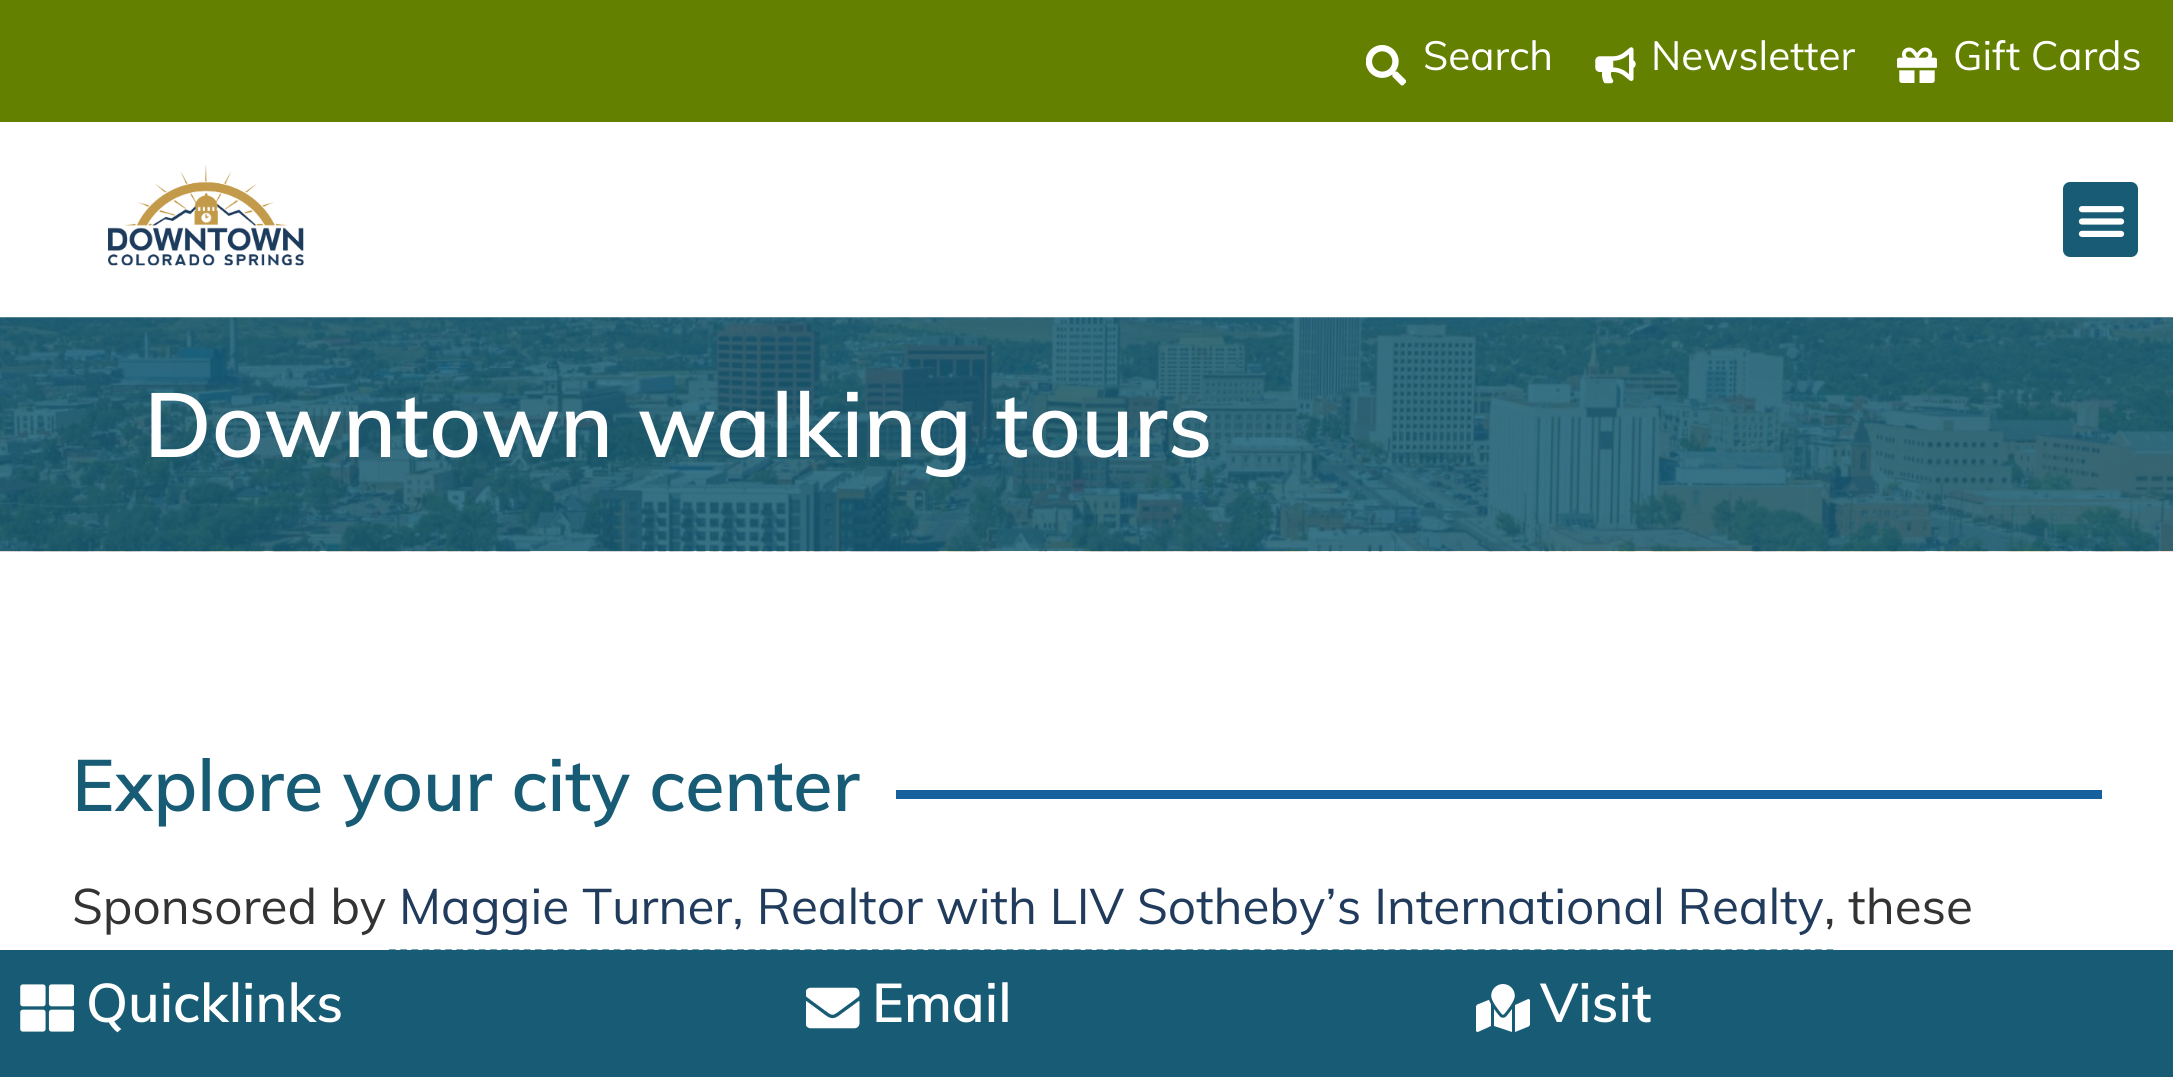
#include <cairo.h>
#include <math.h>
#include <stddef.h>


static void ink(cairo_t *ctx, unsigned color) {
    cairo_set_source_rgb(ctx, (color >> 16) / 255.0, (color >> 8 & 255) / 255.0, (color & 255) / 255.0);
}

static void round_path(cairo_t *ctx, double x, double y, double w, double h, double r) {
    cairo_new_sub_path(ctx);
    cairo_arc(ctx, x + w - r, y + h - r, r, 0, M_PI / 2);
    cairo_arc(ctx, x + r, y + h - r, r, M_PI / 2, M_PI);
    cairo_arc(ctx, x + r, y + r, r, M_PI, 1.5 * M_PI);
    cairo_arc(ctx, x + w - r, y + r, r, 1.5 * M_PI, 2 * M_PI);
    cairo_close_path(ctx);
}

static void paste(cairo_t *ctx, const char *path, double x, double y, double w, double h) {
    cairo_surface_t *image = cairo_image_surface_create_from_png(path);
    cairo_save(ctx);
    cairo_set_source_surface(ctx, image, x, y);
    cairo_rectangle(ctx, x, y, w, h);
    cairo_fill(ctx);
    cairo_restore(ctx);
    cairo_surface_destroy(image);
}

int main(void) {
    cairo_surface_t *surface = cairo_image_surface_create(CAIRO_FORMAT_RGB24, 2173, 1077);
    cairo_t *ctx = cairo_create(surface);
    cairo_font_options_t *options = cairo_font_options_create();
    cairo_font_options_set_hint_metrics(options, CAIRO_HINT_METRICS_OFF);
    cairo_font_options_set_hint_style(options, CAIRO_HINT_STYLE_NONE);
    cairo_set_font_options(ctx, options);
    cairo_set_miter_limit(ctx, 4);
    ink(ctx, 0xFFFFFF);
    cairo_paint(ctx);
    ink(ctx, 0x648000);
    cairo_rectangle(ctx, 0, 0, 2173, 122);
    cairo_fill(ctx);
    paste(ctx, "media/1.png", 1366, 45, 40, 41);
    cairo_select_font_face(ctx, "Muli", CAIRO_FONT_SLANT_NORMAL, CAIRO_FONT_WEIGHT_NORMAL);
    cairo_set_font_size(ctx, 40.5);
    ink(ctx, 0xFFFFFF);
    cairo_move_to(ctx, 1423, 70);
    cairo_show_text(ctx, "Search");
    paste(ctx, "media/2.png", 1595, 47, 41, 37);
    cairo_move_to(ctx, 1651, 70);
    cairo_show_text(ctx, "Newsletter");
    paste(ctx, "media/3.png", 1897, 47, 40, 36);
    cairo_move_to(ctx, 1953, 70);
    cairo_show_text(ctx, "Gift Cards");
    paste(ctx, "media/4.png", 108, 164, 196, 102);
    ink(ctx, 0x175C74);
    round_path(ctx, 2063, 182, 75, 75, 7);
    cairo_fill(ctx);
    paste(ctx, "media/5.png", 2078, 206, 47, 31);
    paste(ctx, "media/6.png", 0, 317, 2173, 235);
    cairo_select_font_face(ctx, "Muli SemiBold", CAIRO_FONT_SLANT_NORMAL, CAIRO_FONT_WEIGHT_NORMAL);
    cairo_set_font_size(ctx, 90);
    ink(ctx, 0xFFFFFF);
    cairo_move_to(ctx, 144, 457);
    cairo_show_text(ctx, "Downtown walking tours");
    cairo_set_font_size(ctx, 72);
    ink(ctx, 0x175C74);
    cairo_move_to(ctx, 72, 811);
    cairo_show_text(ctx, "Explore your city center");
    ink(ctx, 0x16619D);
    cairo_rectangle(ctx, 896, 790, 1206, 9);
    cairo_fill(ctx);
    cairo_select_font_face(ctx, "Muli", CAIRO_FONT_SLANT_NORMAL, CAIRO_FONT_WEIGHT_NORMAL);
    cairo_set_font_size(ctx, 49.5);
    ink(ctx, 0x333333);
    cairo_move_to(ctx, 72, 924);
    cairo_show_text(ctx, "Sponsored by");
    cairo_new_path(ctx);
    cairo_move_to(ctx, 389, 950.5);
    cairo_line_to(ctx, 1834, 950.5);
    ink(ctx, 0x175C74);
    cairo_set_line_width(ctx, 2.2);
    cairo_set_dash(ctx, (double[]){6.75, 4.48}, 2, 0);
    cairo_stroke(ctx);
    ink(ctx, 0x213B5D);
    cairo_move_to(ctx, 399, 924);
    cairo_show_text(ctx, "Maggie Turner, Realtor with LIV Sotheby’s International Realty");
    ink(ctx, 0x333333);
    cairo_move_to(ctx, 1824, 924);
    cairo_show_text(ctx, ", these");
    ink(ctx, 0x175C74);
    cairo_rectangle(ctx, 0, 950, 2173, 127);
    cairo_fill(ctx);
    paste(ctx, "media/7.png", 20, 984, 54, 48);
    cairo_select_font_face(ctx, "Muli SemiBold", CAIRO_FONT_SLANT_NORMAL, CAIRO_FONT_WEIGHT_NORMAL);
    cairo_set_font_size(ctx, 54);
    ink(ctx, 0xFFFFFF);
    cairo_move_to(ctx, 86, 1022);
    cairo_show_text(ctx, "Quicklinks");
    paste(ctx, "media/8.png", 806, 987, 54, 42);
    cairo_move_to(ctx, 872, 1022);
    cairo_show_text(ctx, "Email");
    paste(ctx, "media/9.png", 1476, 984, 54, 48);
    cairo_move_to(ctx, 1540, 1022);
    cairo_show_text(ctx, "Visit");
    cairo_surface_write_to_png(surface, "image.png");
    cairo_font_options_destroy(options);
    cairo_destroy(ctx);
    cairo_surface_destroy(surface);
    return 0;
}
